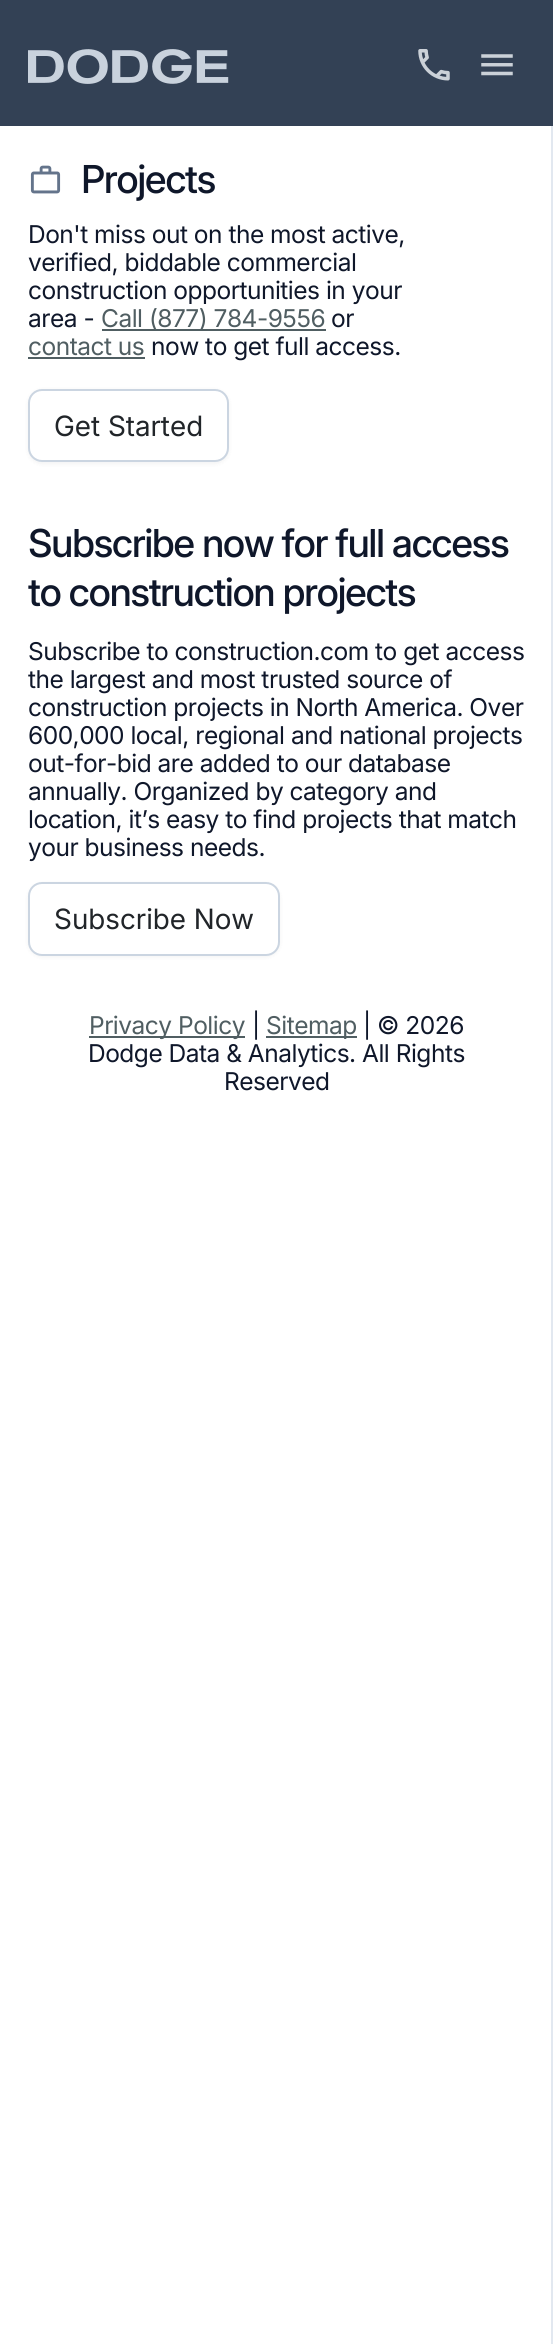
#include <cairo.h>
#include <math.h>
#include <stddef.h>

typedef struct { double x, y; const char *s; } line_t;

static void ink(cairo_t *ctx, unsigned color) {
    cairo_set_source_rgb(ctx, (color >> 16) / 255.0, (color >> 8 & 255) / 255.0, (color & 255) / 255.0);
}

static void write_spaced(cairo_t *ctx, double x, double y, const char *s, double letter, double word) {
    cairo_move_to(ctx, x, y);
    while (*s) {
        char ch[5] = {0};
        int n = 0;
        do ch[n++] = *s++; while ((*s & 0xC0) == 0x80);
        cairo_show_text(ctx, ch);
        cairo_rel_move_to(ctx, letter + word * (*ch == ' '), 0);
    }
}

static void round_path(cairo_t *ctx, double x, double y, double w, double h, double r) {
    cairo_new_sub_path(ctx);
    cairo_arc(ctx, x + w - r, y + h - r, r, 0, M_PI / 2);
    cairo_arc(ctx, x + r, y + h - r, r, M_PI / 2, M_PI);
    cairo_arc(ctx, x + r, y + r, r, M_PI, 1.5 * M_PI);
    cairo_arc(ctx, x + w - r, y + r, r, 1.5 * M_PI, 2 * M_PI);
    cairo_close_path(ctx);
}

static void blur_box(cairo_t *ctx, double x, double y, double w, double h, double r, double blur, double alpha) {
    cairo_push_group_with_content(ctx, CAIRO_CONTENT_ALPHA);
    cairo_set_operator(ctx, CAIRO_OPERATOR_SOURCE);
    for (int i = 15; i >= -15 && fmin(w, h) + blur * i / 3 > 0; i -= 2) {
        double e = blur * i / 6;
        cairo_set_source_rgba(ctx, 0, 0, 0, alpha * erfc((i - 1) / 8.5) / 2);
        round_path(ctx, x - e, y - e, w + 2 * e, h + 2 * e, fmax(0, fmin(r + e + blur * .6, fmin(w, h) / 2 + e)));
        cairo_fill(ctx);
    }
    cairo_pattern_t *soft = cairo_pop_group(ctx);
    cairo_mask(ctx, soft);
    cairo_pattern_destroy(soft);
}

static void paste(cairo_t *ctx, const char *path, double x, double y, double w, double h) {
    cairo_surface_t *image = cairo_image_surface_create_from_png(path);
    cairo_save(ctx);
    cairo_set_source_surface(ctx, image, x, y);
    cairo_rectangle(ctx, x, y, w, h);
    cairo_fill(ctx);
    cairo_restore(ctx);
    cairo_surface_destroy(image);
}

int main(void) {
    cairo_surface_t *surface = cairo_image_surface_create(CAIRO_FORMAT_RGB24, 553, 2344);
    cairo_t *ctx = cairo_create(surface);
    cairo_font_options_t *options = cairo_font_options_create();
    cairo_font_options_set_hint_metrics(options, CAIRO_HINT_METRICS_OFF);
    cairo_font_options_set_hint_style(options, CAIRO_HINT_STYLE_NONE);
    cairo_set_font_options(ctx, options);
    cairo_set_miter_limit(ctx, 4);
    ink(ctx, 0xFFFFFF);
    cairo_paint(ctx);
    ink(ctx, 0x334155);
    cairo_rectangle(ctx, 0, 0, 553, 126);
    cairo_fill(ctx);
    paste(ctx, "media/1.png", 28, 49, 201, 35);
    paste(ctx, "media/2.png", 418, 49, 32, 32);
    paste(ctx, "media/3.png", 481, 54, 32, 22);
    paste(ctx, "media/4.png", 30, 165, 31, 29);
    cairo_select_font_face(ctx, "Inter Medium", CAIRO_FONT_SLANT_NORMAL, CAIRO_FONT_WEIGHT_NORMAL);
    cairo_set_font_size(ctx, 38.5);
    ink(ctx, 0x0F172A);
    write_spaced(ctx, 81, 193, "Projects", -1.55, 0);
    cairo_select_font_face(ctx, "Inter", CAIRO_FONT_SLANT_NORMAL, CAIRO_FONT_WEIGHT_NORMAL);
    cairo_set_font_size(ctx, 24.5);
    {
        static const line_t items[] = {
            {28, 243, "Don't miss out on the most active,"},
            {28, 271, "verified, biddable commercial"},
            {28, 299, "construction opportunities in your"},
            {28, 327, "area -"},
        };
        for (size_t i = 0; i < sizeof items / sizeof *items; i++) {
            write_spaced(ctx, items[i].x, items[i].y, items[i].s, -0.5, 0);
        }
    }
    ink(ctx, 0x505E62);
    cairo_rectangle(ctx, 102, 329, 224, 2);
    cairo_fill(ctx);
    write_spaced(ctx, 101, 327, "Call (877) 784-9556", -0.5, 0);
    ink(ctx, 0x0F172A);
    write_spaced(ctx, 331, 327, "or", -0.5, 0);
    ink(ctx, 0x505E62);
    write_spaced(ctx, 28, 355, "contact us", -0.5, 0);
    cairo_rectangle(ctx, 28, 357, 117, 2);
    cairo_fill(ctx);
    ink(ctx, 0x0F172A);
    write_spaced(ctx, 151, 355, "now to get full access.", -0.5, 0);
    ink(ctx, 0x0A0D12);
    blur_box(ctx, 28, 390, 201, 74, 14, 2, 0.05);
    ink(ctx, 0xFFFFFF);
    round_path(ctx, 29, 390, 199, 71, 13);
    cairo_fill_preserve(ctx);
    ink(ctx, 0xCBD5E1);
    cairo_stroke(ctx);
    cairo_select_font_face(ctx, "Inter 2", CAIRO_FONT_SLANT_NORMAL, CAIRO_FONT_WEIGHT_NORMAL);
    cairo_set_font_size(ctx, 28);
    ink(ctx, 0x212529);
    cairo_move_to(ctx, 54, 436);
    cairo_show_text(ctx, "Get Started");
    ink(ctx, 0xE2E8F0);
    cairo_rectangle(ctx, 551, 126, 2, 2218);
    cairo_fill(ctx);
    cairo_select_font_face(ctx, "Inter Medium", CAIRO_FONT_SLANT_NORMAL, CAIRO_FONT_WEIGHT_NORMAL);
    cairo_set_font_size(ctx, 38.5);
    ink(ctx, 0x0F172A);
    write_spaced(ctx, 28, 557, "Subscribe now for full access", -1.55, 0);
    write_spaced(ctx, 28, 606, "to construction projects", -1.55, 0);
    cairo_select_font_face(ctx, "Inter", CAIRO_FONT_SLANT_NORMAL, CAIRO_FONT_WEIGHT_NORMAL);
    cairo_set_font_size(ctx, 24.5);
    {
        static const line_t items[] = {
            {28, 660, "Subscribe to construction.com to get access"},
            {28, 688, "the largest and most trusted source of"},
            {28, 716, "construction projects in North America. Over"},
            {28, 744, "600,000 local, regional and national projects"},
            {28, 772, "out-for-bid are added to our database"},
            {28, 800, "annually. Organized by category and"},
            {28, 828, "location, it’s easy to find projects that match"},
            {28, 856, "your business needs."},
        };
        for (size_t i = 0; i < sizeof items / sizeof *items; i++) {
            write_spaced(ctx, items[i].x, items[i].y, items[i].s, -0.5, 0);
        }
    }
    ink(ctx, 0x0A0D12);
    blur_box(ctx, 28, 884, 252, 73, 14, 2, 0.05);
    ink(ctx, 0xFFFFFF);
    round_path(ctx, 29, 883, 250, 72, 13);
    cairo_fill_preserve(ctx);
    ink(ctx, 0xCBD5E1);
    cairo_stroke(ctx);
    cairo_select_font_face(ctx, "Inter 2", CAIRO_FONT_SLANT_NORMAL, CAIRO_FONT_WEIGHT_NORMAL);
    cairo_set_font_size(ctx, 28);
    ink(ctx, 0x212529);
    cairo_move_to(ctx, 54, 929);
    cairo_show_text(ctx, "Subscribe Now");
    ink(ctx, 0x505E62);
    cairo_rectangle(ctx, 89, 1036, 156, 2);
    cairo_fill(ctx);
    cairo_select_font_face(ctx, "Inter", CAIRO_FONT_SLANT_NORMAL, CAIRO_FONT_WEIGHT_NORMAL);
    cairo_set_font_size(ctx, 24.5);
    write_spaced(ctx, 89, 1034, "Privacy Policy", -0.5, 0);
    ink(ctx, 0x0F172A);
    write_spaced(ctx, 252, 1034, "|", -0.5, 0);
    ink(ctx, 0x505E62);
    cairo_rectangle(ctx, 266, 1036, 91, 2);
    cairo_fill(ctx);
    write_spaced(ctx, 266, 1034, "Sitemap", -0.5, 0);
    ink(ctx, 0x0F172A);
    {
        static const line_t items[] = {
            {363, 1034, "| © 2026"},
            {88, 1062, "Dodge Data & Analytics. All Rights"},
            {224, 1090, "Reserved"},
        };
        for (size_t i = 0; i < sizeof items / sizeof *items; i++) {
            write_spaced(ctx, items[i].x, items[i].y, items[i].s, -0.5, 0);
        }
    }
    cairo_surface_write_to_png(surface, "image.png");
    cairo_font_options_destroy(options);
    cairo_destroy(ctx);
    cairo_surface_destroy(surface);
    return 0;
}
